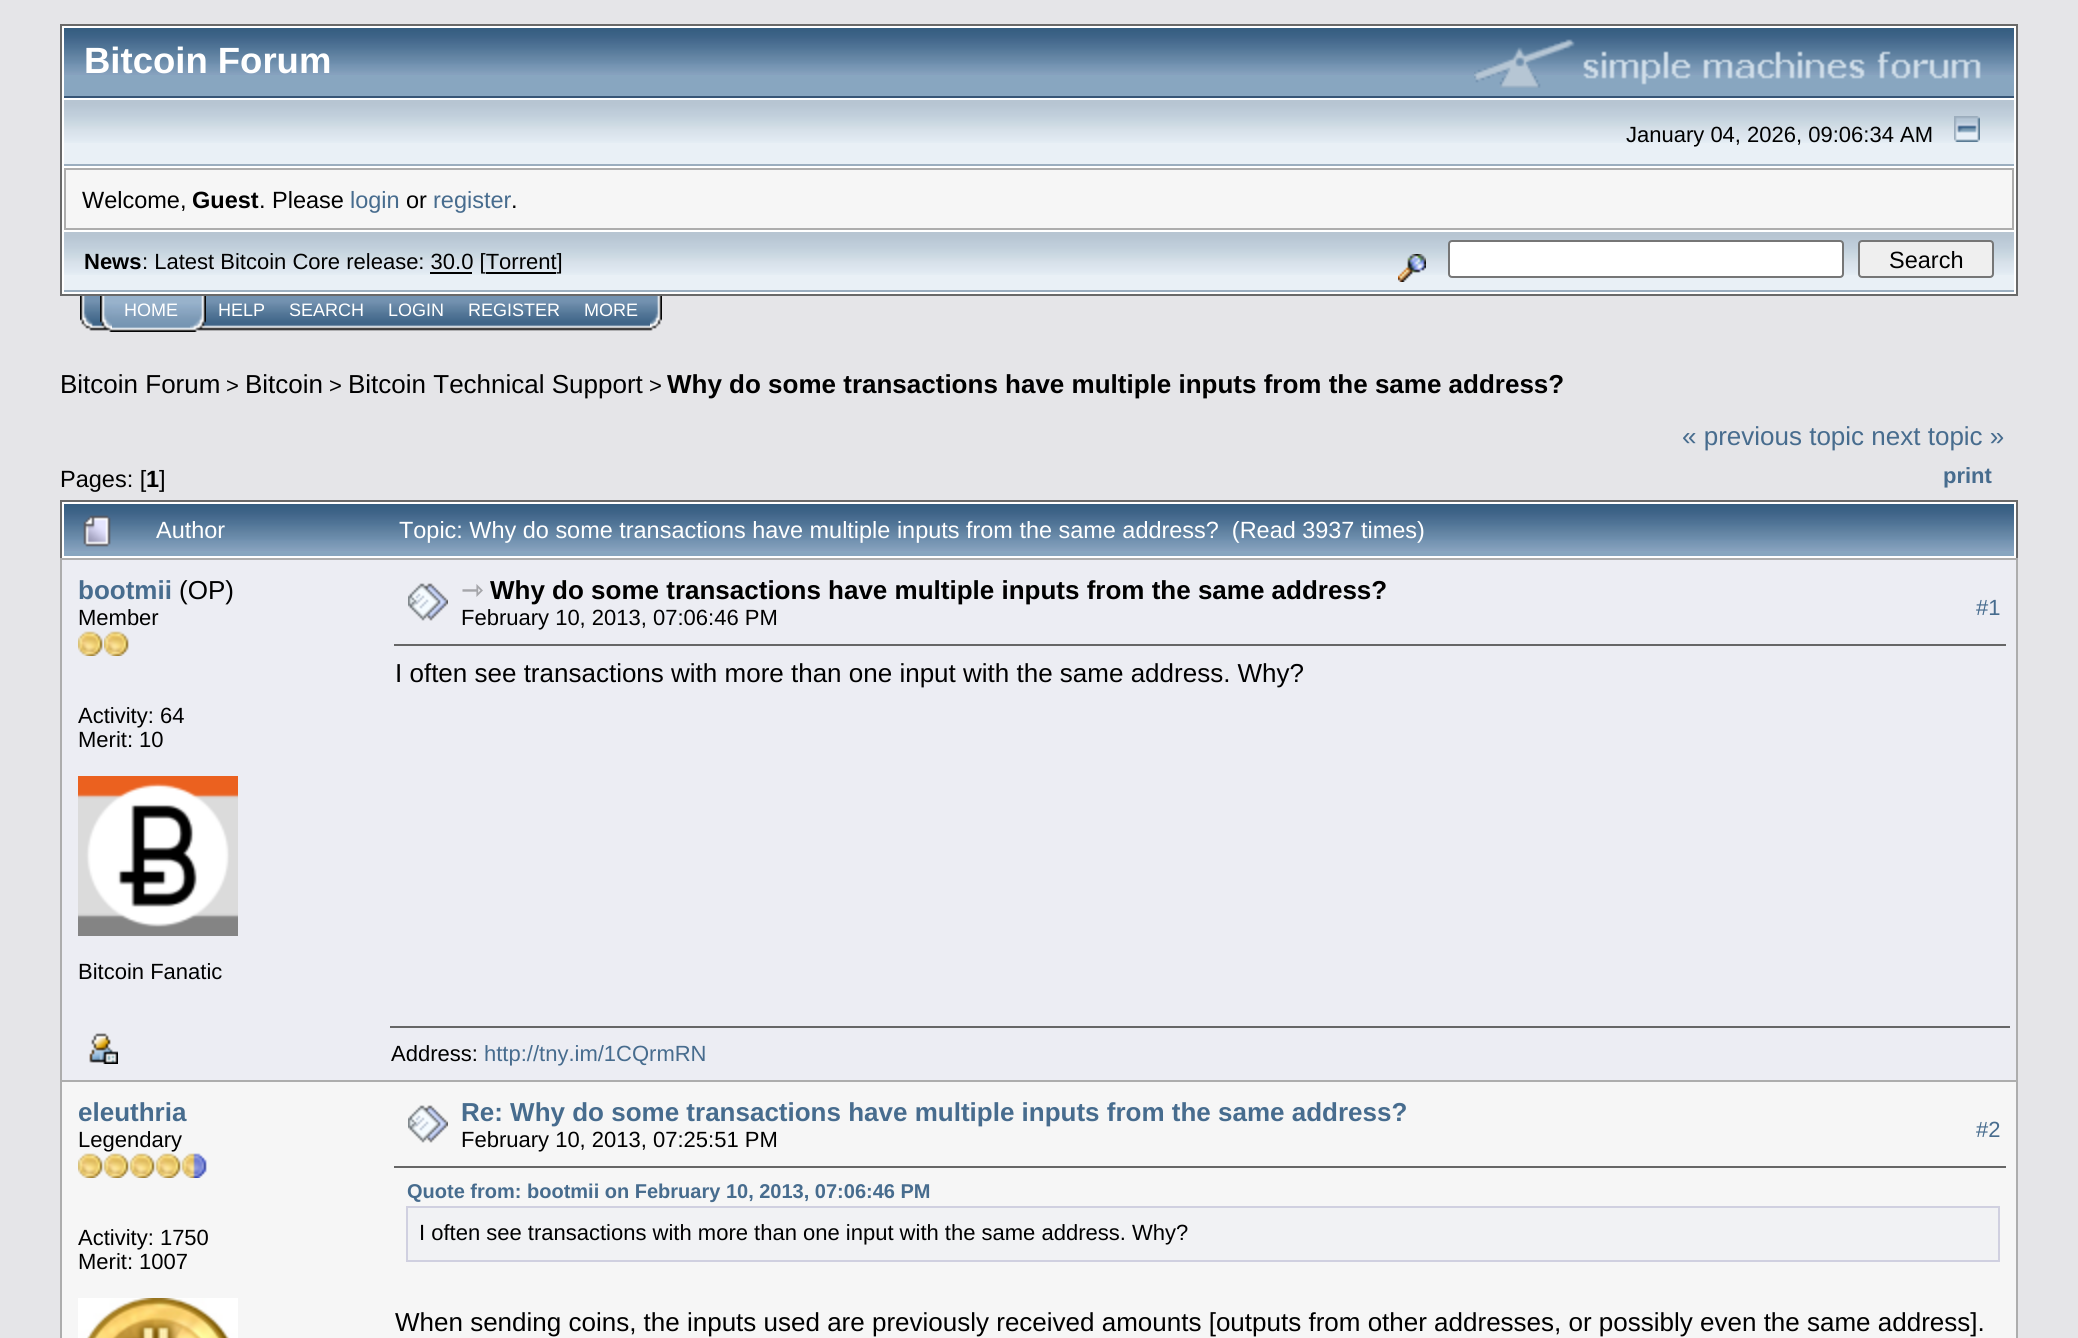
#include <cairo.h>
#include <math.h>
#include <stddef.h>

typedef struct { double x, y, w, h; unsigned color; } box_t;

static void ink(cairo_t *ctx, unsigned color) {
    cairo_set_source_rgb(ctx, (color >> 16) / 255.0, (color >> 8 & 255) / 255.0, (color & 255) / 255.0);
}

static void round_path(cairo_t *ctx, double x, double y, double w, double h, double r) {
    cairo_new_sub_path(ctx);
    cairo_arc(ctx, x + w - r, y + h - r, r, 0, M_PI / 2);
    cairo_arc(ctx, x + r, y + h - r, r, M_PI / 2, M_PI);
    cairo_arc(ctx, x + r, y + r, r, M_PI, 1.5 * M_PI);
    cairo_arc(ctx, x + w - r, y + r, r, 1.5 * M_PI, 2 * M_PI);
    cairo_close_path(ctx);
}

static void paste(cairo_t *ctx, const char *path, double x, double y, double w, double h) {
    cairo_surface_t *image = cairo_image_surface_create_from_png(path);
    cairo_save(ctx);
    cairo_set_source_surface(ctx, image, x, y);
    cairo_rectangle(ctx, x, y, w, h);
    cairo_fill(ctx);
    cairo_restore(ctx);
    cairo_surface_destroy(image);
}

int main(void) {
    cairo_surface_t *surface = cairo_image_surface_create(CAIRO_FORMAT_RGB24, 2078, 1338);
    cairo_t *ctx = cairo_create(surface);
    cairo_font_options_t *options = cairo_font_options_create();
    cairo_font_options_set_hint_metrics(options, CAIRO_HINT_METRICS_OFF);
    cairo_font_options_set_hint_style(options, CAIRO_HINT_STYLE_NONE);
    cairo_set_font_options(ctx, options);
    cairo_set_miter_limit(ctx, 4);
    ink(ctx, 0xE5E5E8);
    cairo_paint(ctx);
    ink(ctx, 0xFFFFFF);
    cairo_rectangle(ctx, 61, 25, 1956, 270);
    cairo_fill_preserve(ctx);
    ink(ctx, 0x696969);
    cairo_stroke(ctx);
    ink(ctx, 0x88A6C0);
    cairo_rectangle(ctx, 64, 75, 1950, 21);
    cairo_fill(ctx);
    paste(ctx, "media/1.png", 64, 28, 656, 47);
    ink(ctx, 0x375576);
    cairo_rectangle(ctx, 64, 96, 1950, 2);
    cairo_fill(ctx);
    cairo_select_font_face(ctx, "Liberation Sans", CAIRO_FONT_SLANT_NORMAL, CAIRO_FONT_WEIGHT_BOLD);
    cairo_set_font_size(ctx, 36.5);
    ink(ctx, 0xFFFFFF);
    cairo_move_to(ctx, 84, 73);
    cairo_show_text(ctx, "Bitcoin Forum");
    paste(ctx, "media/2.png", 720, 28, 1294, 47);
    paste(ctx, "media/3.png", 1474, 39, 507, 49);
    ink(ctx, 0xE9F0F6);
    cairo_rectangle(ctx, 64, 143, 1950, 21);
    cairo_fill(ctx);
    paste(ctx, "media/4.png", 64, 100, 1950, 43);
    ink(ctx, 0x9BAEBF);
    cairo_rectangle(ctx, 64, 164, 1950, 2);
    cairo_fill(ctx);
    cairo_select_font_face(ctx, "Liberation Sans", CAIRO_FONT_SLANT_NORMAL, CAIRO_FONT_WEIGHT_NORMAL);
    cairo_set_font_size(ctx, 22);
    ink(ctx, 0x000000);
    cairo_move_to(ctx, 1626, 142);
    cairo_show_text(ctx, "January 04, 2026, 09:06:34 AM");
    paste(ctx, "media/5.png", 1954, 116, 26, 26);
    ink(ctx, 0xADADAD);
    cairo_rectangle(ctx, 64, 168, 1950, 62);
    cairo_fill(ctx);
    ink(ctx, 0xF6F6F6);
    cairo_rectangle(ctx, 66, 170, 1946, 58);
    cairo_fill(ctx);
    cairo_set_font_size(ctx, 23.5);
    ink(ctx, 0x000000);
    cairo_move_to(ctx, 82, 208);
    cairo_show_text(ctx, "Welcome,");
    cairo_select_font_face(ctx, "Liberation Sans", CAIRO_FONT_SLANT_NORMAL, CAIRO_FONT_WEIGHT_BOLD);
    cairo_move_to(ctx, 192, 208);
    cairo_show_text(ctx, "Guest");
    cairo_select_font_face(ctx, "Liberation Sans", CAIRO_FONT_SLANT_NORMAL, CAIRO_FONT_WEIGHT_NORMAL);
    cairo_move_to(ctx, 259, 208);
    cairo_show_text(ctx, ". Please");
    ink(ctx, 0x476C8E);
    cairo_move_to(ctx, 350, 208);
    cairo_show_text(ctx, "login");
    ink(ctx, 0x000000);
    cairo_move_to(ctx, 406, 208);
    cairo_show_text(ctx, "or");
    ink(ctx, 0x476C8E);
    cairo_move_to(ctx, 433, 208);
    cairo_show_text(ctx, "register");
    ink(ctx, 0x000000);
    cairo_move_to(ctx, 511, 208);
    cairo_show_text(ctx, ".");
    ink(ctx, 0xE9F0F6);
    cairo_rectangle(ctx, 64, 275, 1950, 15);
    cairo_fill(ctx);
    paste(ctx, "media/6.png", 64, 232, 1300, 43);
    ink(ctx, 0x9BAEBF);
    cairo_rectangle(ctx, 64, 290, 1950, 2);
    cairo_fill(ctx);
    cairo_select_font_face(ctx, "Liberation Sans", CAIRO_FONT_SLANT_NORMAL, CAIRO_FONT_WEIGHT_BOLD);
    cairo_set_font_size(ctx, 22);
    ink(ctx, 0x000000);
    cairo_move_to(ctx, 84, 269);
    cairo_show_text(ctx, "News");
    cairo_select_font_face(ctx, "Liberation Sans", CAIRO_FONT_SLANT_NORMAL, CAIRO_FONT_WEIGHT_NORMAL);
    cairo_move_to(ctx, 142, 269);
    cairo_show_text(ctx, ": Latest Bitcoin Core release: 30.0 [Torrent]");
    cairo_rectangle(ctx, 430, 272, 42, 2);
    cairo_fill(ctx);
    cairo_rectangle(ctx, 486, 272, 70, 2);
    cairo_fill(ctx);
    paste(ctx, "media/7.png", 1364, 232, 650, 43);
    paste(ctx, "media/8.png", 1398, 254, 28, 28);
    ink(ctx, 0xFFFFFF);
    round_path(ctx, 1449, 241, 394, 36, 3);
    cairo_fill_preserve(ctx);
    ink(ctx, 0x767676);
    cairo_stroke(ctx);
    ink(ctx, 0xEFEFEF);
    round_path(ctx, 1859, 241, 134, 36, 3);
    cairo_fill_preserve(ctx);
    ink(ctx, 0x767676);
    cairo_stroke(ctx);
    cairo_set_font_size(ctx, 23.5);
    ink(ctx, 0x000000);
    cairo_move_to(ctx, 1889, 268);
    cairo_show_text(ctx, "Search");
    paste(ctx, "media/9.png", 80, 296, 20, 35);
    paste(ctx, "media/10.png", 100, 296, 12, 36);
    paste(ctx, "media/11.png", 112, 296, 78, 36);
    cairo_set_font_size(ctx, 18);
    ink(ctx, 0xFFFFFF);
    cairo_move_to(ctx, 124, 316);
    cairo_show_text(ctx, "HOME");
    paste(ctx, "media/12.png", 190, 296, 16, 36);
    paste(ctx, "media/13.png", 206, 296, 72, 35);
    cairo_move_to(ctx, 218, 316);
    cairo_show_text(ctx, "HELP");
    paste(ctx, "media/14.png", 278, 296, 98, 35);
    cairo_move_to(ctx, 289, 316);
    cairo_show_text(ctx, "SEARCH");
    paste(ctx, "media/15.png", 376, 296, 80, 35);
    cairo_move_to(ctx, 388, 316);
    cairo_show_text(ctx, "LOGIN");
    paste(ctx, "media/16.png", 456, 296, 116, 35);
    cairo_move_to(ctx, 468, 316);
    cairo_show_text(ctx, "REGISTER");
    paste(ctx, "media/17.png", 572, 296, 78, 35);
    cairo_move_to(ctx, 584, 316);
    cairo_show_text(ctx, "MORE");
    paste(ctx, "media/18.png", 650, 296, 12, 35);
    cairo_set_font_size(ctx, 26);
    ink(ctx, 0x000000);
    cairo_move_to(ctx, 60, 393);
    cairo_show_text(ctx, "Bitcoin Forum");
    cairo_set_font_size(ctx, 22);
    cairo_move_to(ctx, 226, 393);
    cairo_show_text(ctx, ">");
    cairo_set_font_size(ctx, 26);
    cairo_move_to(ctx, 245, 393);
    cairo_show_text(ctx, "Bitcoin");
    cairo_set_font_size(ctx, 22);
    cairo_move_to(ctx, 329, 393);
    cairo_show_text(ctx, ">");
    cairo_set_font_size(ctx, 26);
    cairo_move_to(ctx, 348, 393);
    cairo_show_text(ctx, "Bitcoin Technical Support");
    cairo_set_font_size(ctx, 22);
    cairo_move_to(ctx, 649, 393);
    cairo_show_text(ctx, ">");
    cairo_select_font_face(ctx, "Liberation Sans", CAIRO_FONT_SLANT_NORMAL, CAIRO_FONT_WEIGHT_BOLD);
    cairo_set_font_size(ctx, 26);
    cairo_move_to(ctx, 667, 393);
    cairo_show_text(ctx, "Why do some transactions have multiple inputs from the same address?");
    cairo_select_font_face(ctx, "Liberation Sans", CAIRO_FONT_SLANT_NORMAL, CAIRO_FONT_WEIGHT_NORMAL);
    cairo_set_font_size(ctx, 23.5);
    cairo_move_to(ctx, 60, 487);
    cairo_show_text(ctx, "Pages: [");
    cairo_select_font_face(ctx, "Liberation Sans", CAIRO_FONT_SLANT_NORMAL, CAIRO_FONT_WEIGHT_BOLD);
    cairo_move_to(ctx, 146, 487);
    cairo_show_text(ctx, "1");
    cairo_select_font_face(ctx, "Liberation Sans", CAIRO_FONT_SLANT_NORMAL, CAIRO_FONT_WEIGHT_NORMAL);
    cairo_move_to(ctx, 159, 487);
    cairo_show_text(ctx, "]");
    cairo_set_font_size(ctx, 26);
    ink(ctx, 0x476C8E);
    cairo_move_to(ctx, 1682, 445);
    cairo_show_text(ctx, "« previous topic next topic »");
    cairo_select_font_face(ctx, "Liberation Sans", CAIRO_FONT_SLANT_NORMAL, CAIRO_FONT_WEIGHT_BOLD);
    cairo_set_font_size(ctx, 22);
    cairo_move_to(ctx, 1943, 483);
    cairo_show_text(ctx, "print");
    {
        static const box_t items[] = {
            {62, 502, 1954, 56, 0xFFFFFF},
            {60, 500, 1958, 2, 0x696969},
            {2016, 500, 2, 58, 0x696969},
            {60, 500, 2, 58, 0x696969},
            {64, 551, 1950, 5, 0x88A6C0},
        };
        for (size_t i = 0; i < sizeof items / sizeof *items; i++) {
            ink(ctx, items[i].color);
            cairo_rectangle(ctx, items[i].x, items[i].y, items[i].w, items[i].h);
            cairo_fill(ctx);
        }
    }
    paste(ctx, "media/19.png", 64, 504, 72, 47);
    paste(ctx, "media/20.png", 83, 515, 28, 32);
    paste(ctx, "media/21.png", 136, 504, 250, 47);
    cairo_select_font_face(ctx, "Liberation Sans", CAIRO_FONT_SLANT_NORMAL, CAIRO_FONT_WEIGHT_NORMAL);
    cairo_set_font_size(ctx, 23.45);
    ink(ctx, 0xFFFFFF);
    cairo_move_to(ctx, 156, 538);
    cairo_show_text(ctx, "Author");
    paste(ctx, "media/22.png", 386, 504, 1628, 47);
    cairo_move_to(ctx, 399, 538);
    cairo_show_text(ctx, "Topic: Why do some transactions have multiple inputs from the same address?  (Read 3937 times)");
    ink(ctx, 0xADADAD);
    cairo_rectangle(ctx, 60, 558, 1958, 780);
    cairo_fill(ctx);
    ink(ctx, 0xECEDF3);
    cairo_rectangle(ctx, 62, 560, 1954, 520);
    cairo_fill(ctx);
    cairo_select_font_face(ctx, "Liberation Sans", CAIRO_FONT_SLANT_NORMAL, CAIRO_FONT_WEIGHT_BOLD);
    cairo_set_font_size(ctx, 26);
    ink(ctx, 0x476C8E);
    cairo_move_to(ctx, 78, 599);
    cairo_show_text(ctx, "bootmii");
    cairo_select_font_face(ctx, "Liberation Sans", CAIRO_FONT_SLANT_NORMAL, CAIRO_FONT_WEIGHT_NORMAL);
    ink(ctx, 0x000000);
    cairo_move_to(ctx, 179, 599);
    cairo_show_text(ctx, "(OP)");
    cairo_set_font_size(ctx, 22);
    cairo_move_to(ctx, 78, 625);
    cairo_show_text(ctx, "Member");
    paste(ctx, "media/23.png", 78, 631, 25, 25);
    paste(ctx, "media/23.png", 104, 631, 25, 25);
    cairo_move_to(ctx, 78, 723);
    cairo_show_text(ctx, "Activity: 64");
    cairo_move_to(ctx, 78, 747);
    cairo_show_text(ctx, "Merit: 10");
    paste(ctx, "media/24.png", 78, 776, 160, 160);
    cairo_move_to(ctx, 78, 979);
    cairo_show_text(ctx, "Bitcoin Fanatic");
    paste(ctx, "media/25.png", 89, 1033, 29, 31);
    paste(ctx, "media/26.png", 408, 583, 40, 38);
    cairo_select_font_face(ctx, "DejaVu Sans", CAIRO_FONT_SLANT_NORMAL, CAIRO_FONT_WEIGHT_BOLD);
    cairo_set_font_size(ctx, 26);
    ink(ctx, 0xA5A6AA);
    cairo_move_to(ctx, 461, 599);
    cairo_show_text(ctx, "⇾");
    cairo_select_font_face(ctx, "Liberation Sans", CAIRO_FONT_SLANT_NORMAL, CAIRO_FONT_WEIGHT_BOLD);
    ink(ctx, 0x000000);
    cairo_move_to(ctx, 490, 599);
    cairo_show_text(ctx, "Why do some transactions have multiple inputs from the same address?");
    cairo_select_font_face(ctx, "Liberation Sans", CAIRO_FONT_SLANT_NORMAL, CAIRO_FONT_WEIGHT_NORMAL);
    cairo_set_font_size(ctx, 22);
    cairo_move_to(ctx, 461, 625);
    cairo_show_text(ctx, "February 10, 2013, 07:06:46 PM");
    ink(ctx, 0x476C8E);
    cairo_move_to(ctx, 1976, 615);
    cairo_show_text(ctx, "#1");
    ink(ctx, 0x666666);
    cairo_rectangle(ctx, 394, 644, 1612, 2);
    cairo_fill(ctx);
    cairo_set_font_size(ctx, 26);
    ink(ctx, 0x000000);
    cairo_move_to(ctx, 395, 682);
    cairo_show_text(ctx, "I often see transactions with more than one input with the same address. Why?");
    ink(ctx, 0x666666);
    cairo_rectangle(ctx, 390, 1026, 1620, 2);
    cairo_fill(ctx);
    cairo_set_font_size(ctx, 22);
    ink(ctx, 0x000000);
    cairo_move_to(ctx, 391, 1061);
    cairo_show_text(ctx, "Address:");
    ink(ctx, 0x476C8E);
    cairo_move_to(ctx, 484, 1061);
    cairo_show_text(ctx, "http://tny.im/1CQrmRN");
    ink(ctx, 0xF6F6F6);
    cairo_rectangle(ctx, 62, 1082, 1954, 256);
    cairo_fill(ctx);
    cairo_select_font_face(ctx, "Liberation Sans", CAIRO_FONT_SLANT_NORMAL, CAIRO_FONT_WEIGHT_BOLD);
    cairo_set_font_size(ctx, 26);
    ink(ctx, 0x476C8E);
    cairo_move_to(ctx, 78, 1121);
    cairo_show_text(ctx, "eleuthria");
    cairo_select_font_face(ctx, "Liberation Sans", CAIRO_FONT_SLANT_NORMAL, CAIRO_FONT_WEIGHT_NORMAL);
    cairo_set_font_size(ctx, 22);
    ink(ctx, 0x000000);
    cairo_move_to(ctx, 78, 1147);
    cairo_show_text(ctx, "Legendary");
    paste(ctx, "media/27.png", 78, 1153, 129, 25);
    cairo_move_to(ctx, 78, 1245);
    cairo_show_text(ctx, "Activity: 1750");
    cairo_move_to(ctx, 78, 1269);
    cairo_show_text(ctx, "Merit: 1007");
    paste(ctx, "media/28.png", 78, 1298, 160, 40);
    paste(ctx, "media/29.png", 408, 1105, 40, 38);
    cairo_select_font_face(ctx, "Liberation Sans", CAIRO_FONT_SLANT_NORMAL, CAIRO_FONT_WEIGHT_BOLD);
    cairo_set_font_size(ctx, 26);
    ink(ctx, 0x476C8E);
    cairo_move_to(ctx, 461, 1121);
    cairo_show_text(ctx, "Re: Why do some transactions have multiple inputs from the same address?");
    cairo_select_font_face(ctx, "Liberation Sans", CAIRO_FONT_SLANT_NORMAL, CAIRO_FONT_WEIGHT_NORMAL);
    cairo_set_font_size(ctx, 22);
    ink(ctx, 0x000000);
    cairo_move_to(ctx, 461, 1147);
    cairo_show_text(ctx, "February 10, 2013, 07:25:51 PM");
    ink(ctx, 0x476C8E);
    cairo_move_to(ctx, 1976, 1137);
    cairo_show_text(ctx, "#2");
    ink(ctx, 0x666666);
    cairo_rectangle(ctx, 394, 1166, 1612, 2);
    cairo_fill(ctx);
    cairo_select_font_face(ctx, "Liberation Sans", CAIRO_FONT_SLANT_NORMAL, CAIRO_FONT_WEIGHT_BOLD);
    cairo_set_font_size(ctx, 20);
    ink(ctx, 0x476C8E);
    cairo_move_to(ctx, 407, 1198);
    cairo_show_text(ctx, "Quote from: bootmii on February 10, 2013, 07:06:46 PM");
    ink(ctx, 0xF1F2F4);
    cairo_rectangle(ctx, 407, 1207, 1592, 54);
    cairo_fill_preserve(ctx);
    ink(ctx, 0xD0D0E0);
    cairo_stroke(ctx);
    cairo_select_font_face(ctx, "Liberation Sans", CAIRO_FONT_SLANT_NORMAL, CAIRO_FONT_WEIGHT_NORMAL);
    cairo_set_font_size(ctx, 22);
    ink(ctx, 0x000000);
    cairo_move_to(ctx, 419, 1240);
    cairo_show_text(ctx, "I often see transactions with more than one input with the same address. Why?");
    cairo_set_font_size(ctx, 26);
    cairo_move_to(ctx, 395, 1331);
    cairo_show_text(ctx, "When sending coins, the inputs used are previously received amounts [outputs from other addresses, or possibly even the same address].");
    cairo_surface_write_to_png(surface, "image.png");
    cairo_font_options_destroy(options);
    cairo_destroy(ctx);
    cairo_surface_destroy(surface);
    return 0;
}
